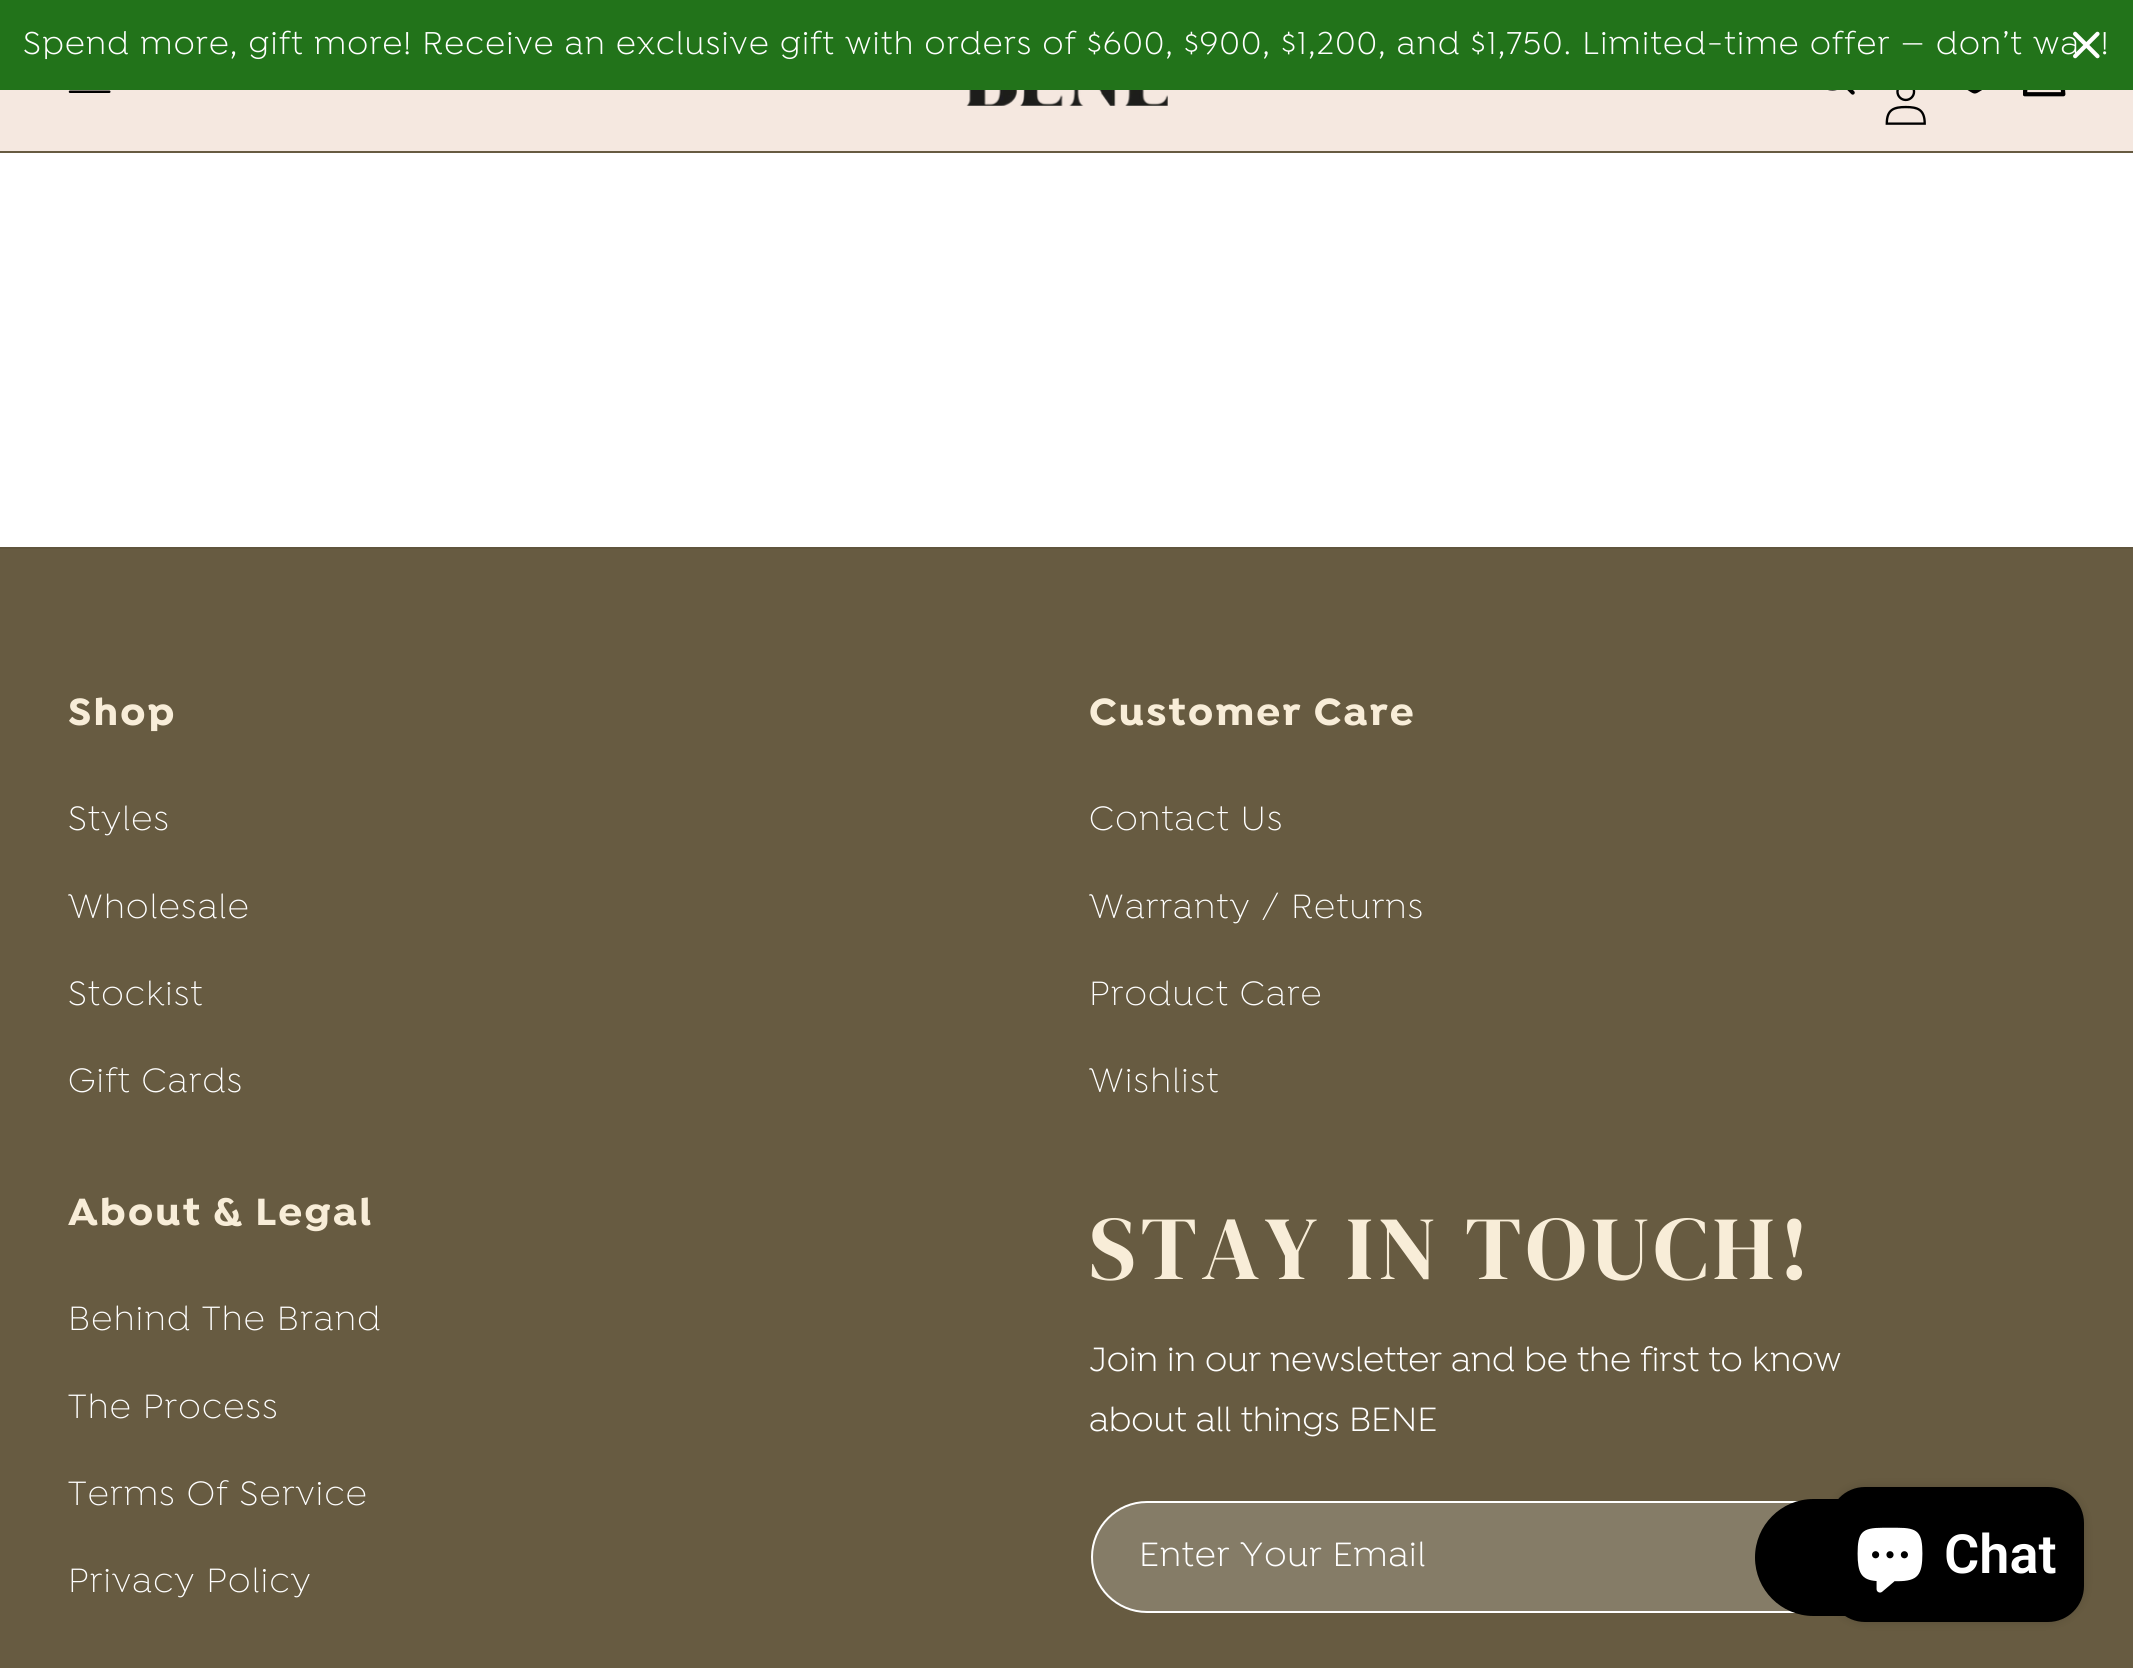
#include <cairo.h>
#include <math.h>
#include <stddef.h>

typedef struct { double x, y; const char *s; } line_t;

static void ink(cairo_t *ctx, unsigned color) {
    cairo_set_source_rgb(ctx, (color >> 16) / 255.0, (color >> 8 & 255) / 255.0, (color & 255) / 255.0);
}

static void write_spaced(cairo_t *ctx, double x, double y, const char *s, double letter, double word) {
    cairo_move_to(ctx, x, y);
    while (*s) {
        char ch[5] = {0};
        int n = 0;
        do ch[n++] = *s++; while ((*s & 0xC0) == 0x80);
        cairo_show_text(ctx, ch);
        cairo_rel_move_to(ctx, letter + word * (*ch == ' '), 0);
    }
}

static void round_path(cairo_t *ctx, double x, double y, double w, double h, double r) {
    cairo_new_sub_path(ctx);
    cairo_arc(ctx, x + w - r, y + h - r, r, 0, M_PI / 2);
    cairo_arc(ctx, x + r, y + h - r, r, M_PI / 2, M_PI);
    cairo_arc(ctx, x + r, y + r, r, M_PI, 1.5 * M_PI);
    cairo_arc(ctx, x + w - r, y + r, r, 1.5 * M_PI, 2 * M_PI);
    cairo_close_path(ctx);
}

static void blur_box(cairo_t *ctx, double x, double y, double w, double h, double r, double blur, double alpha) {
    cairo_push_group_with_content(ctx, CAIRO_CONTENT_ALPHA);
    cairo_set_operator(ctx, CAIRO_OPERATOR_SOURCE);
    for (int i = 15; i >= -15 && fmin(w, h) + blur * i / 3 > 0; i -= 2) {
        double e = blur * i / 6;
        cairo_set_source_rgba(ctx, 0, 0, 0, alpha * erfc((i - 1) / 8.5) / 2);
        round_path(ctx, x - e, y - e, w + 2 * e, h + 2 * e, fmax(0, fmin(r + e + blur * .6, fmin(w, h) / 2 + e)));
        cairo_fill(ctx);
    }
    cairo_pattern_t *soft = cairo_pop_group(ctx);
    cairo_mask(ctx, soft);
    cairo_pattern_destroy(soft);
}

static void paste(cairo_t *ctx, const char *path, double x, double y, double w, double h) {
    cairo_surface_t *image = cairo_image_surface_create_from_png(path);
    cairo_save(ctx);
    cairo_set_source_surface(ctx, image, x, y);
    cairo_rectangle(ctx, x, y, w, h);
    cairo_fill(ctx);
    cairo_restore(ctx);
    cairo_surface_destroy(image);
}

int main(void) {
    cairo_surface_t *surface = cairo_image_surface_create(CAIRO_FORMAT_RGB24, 2133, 1668);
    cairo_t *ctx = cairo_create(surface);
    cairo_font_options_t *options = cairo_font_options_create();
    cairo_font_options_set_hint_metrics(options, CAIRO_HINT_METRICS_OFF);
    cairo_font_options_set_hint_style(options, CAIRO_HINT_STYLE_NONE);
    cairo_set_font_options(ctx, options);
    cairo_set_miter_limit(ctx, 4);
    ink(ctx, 0xFFFFFF);
    cairo_paint(ctx);
    ink(ctx, 0x22731A);
    cairo_rectangle(ctx, 0, 0, 2133, 90);
    cairo_fill(ctx);
    cairo_select_font_face(ctx, "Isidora", CAIRO_FONT_SLANT_NORMAL, CAIRO_FONT_WEIGHT_NORMAL);
    cairo_set_font_size(ctx, 33.75);
    ink(ctx, 0xFFFFFF);
    write_spaced(ctx, 23, 54, "Spend more, gift more! Receive an exclusive gift with orders of $600, $900, $1,200, and $1,750. Limited-time offer — don’t wa", 1.35, 0);
    write_spaced(ctx, 2101, 54, "!", 1.35, 0);
    paste(ctx, "media/1.png", 2073, 31, 27, 28);
    ink(ctx, 0xF5E8E0);
    cairo_rectangle(ctx, 0, 90, 2133, 61);
    cairo_fill(ctx);
    ink(ctx, 0x675B41);
    cairo_rectangle(ctx, 0, 151, 2133, 2);
    cairo_fill(ctx);
    paste(ctx, "media/2.png", 68, 90, 43, 3);
    paste(ctx, "media/3.png", 966, 90, 202, 16);
    paste(ctx, "media/4.png", 1828, 90, 27, 5);
    paste(ctx, "media/5.png", 1885, 90, 41, 35);
    paste(ctx, "media/6.png", 1967, 90, 15, 4);
    paste(ctx, "media/7.png", 2023, 90, 43, 7);
    cairo_rectangle(ctx, 0, 549, 2133, 1119);
    cairo_fill(ctx);
    ink(ctx, 0x60553D);
    cairo_rectangle(ctx, 0, 547, 2133, 2);
    cairo_fill(ctx);
    cairo_select_font_face(ctx, "Isidora", CAIRO_FONT_SLANT_NORMAL, CAIRO_FONT_WEIGHT_BOLD);
    cairo_set_font_size(ctx, 40.5);
    ink(ctx, 0xF8EDD8);
    write_spaced(ctx, 68, 725, "Shop", 2.25, 0);
    cairo_select_font_face(ctx, "Isidora Light", CAIRO_FONT_SLANT_NORMAL, CAIRO_FONT_WEIGHT_NORMAL);
    cairo_set_font_size(ctx, 36);
    ink(ctx, 0xFFFFFF);
    {
        static const line_t items[] = {
            {68, 830, "Styles"},
            {68, 918, "Wholesale"},
            {68, 1005, "Stockist"},
            {68, 1092, "Gift Cards"},
        };
        for (size_t i = 0; i < sizeof items / sizeof *items; i++) {
            write_spaced(ctx, items[i].x, items[i].y, items[i].s, 1.35, 0);
        }
    }
    cairo_select_font_face(ctx, "Isidora", CAIRO_FONT_SLANT_NORMAL, CAIRO_FONT_WEIGHT_BOLD);
    cairo_set_font_size(ctx, 40.5);
    ink(ctx, 0xF8EDD8);
    write_spaced(ctx, 1089, 725, "Customer Care", 2.25, 0);
    cairo_select_font_face(ctx, "Isidora Light", CAIRO_FONT_SLANT_NORMAL, CAIRO_FONT_WEIGHT_NORMAL);
    cairo_set_font_size(ctx, 36);
    ink(ctx, 0xFFFFFF);
    {
        static const line_t items[] = {
            {1089, 830, "Contact Us"},
            {1089, 918, "Warranty / Returns"},
            {1089, 1005, "Product Care"},
            {1089, 1092, "Wishlist"},
        };
        for (size_t i = 0; i < sizeof items / sizeof *items; i++) {
            write_spaced(ctx, items[i].x, items[i].y, items[i].s, 1.35, 0);
        }
    }
    cairo_select_font_face(ctx, "Isidora", CAIRO_FONT_SLANT_NORMAL, CAIRO_FONT_WEIGHT_BOLD);
    cairo_set_font_size(ctx, 40.5);
    ink(ctx, 0xF8EDD8);
    write_spaced(ctx, 68, 1225, "About & Legal", 2.25, 0);
    cairo_select_font_face(ctx, "Isidora Light", CAIRO_FONT_SLANT_NORMAL, CAIRO_FONT_WEIGHT_NORMAL);
    cairo_set_font_size(ctx, 36);
    ink(ctx, 0xFFFFFF);
    {
        static const line_t items[] = {
            {68, 1330, "Behind The Brand"},
            {68, 1418, "The Process"},
            {68, 1505, "Terms Of Service"},
            {68, 1592, "Privacy Policy"},
        };
        for (size_t i = 0; i < sizeof items / sizeof *items; i++) {
            write_spaced(ctx, items[i].x, items[i].y, items[i].s, 1.35, 0);
        }
    }
    cairo_select_font_face(ctx, "DM Serif Display", CAIRO_FONT_SLANT_NORMAL, CAIRO_FONT_WEIGHT_NORMAL);
    cairo_set_font_size(ctx, 90);
    ink(ctx, 0xF8EDD8);
    write_spaced(ctx, 1089, 1279, "STAY IN TOUCH!", 4.5, 0);
    cairo_select_font_face(ctx, "Isidora", CAIRO_FONT_SLANT_NORMAL, CAIRO_FONT_WEIGHT_NORMAL);
    cairo_set_font_size(ctx, 36);
    ink(ctx, 0xFFFFFF);
    cairo_move_to(ctx, 1089, 1371);
    cairo_show_text(ctx, "Join in our newsletter and be the first to know");
    cairo_move_to(ctx, 1089, 1431);
    cairo_show_text(ctx, "about all things BENE");
    ink(ctx, 0x857C67);
    round_path(ctx, 1092, 1502, 970, 110, 55);
    cairo_fill_preserve(ctx);
    ink(ctx, 0xFFFFFF);
    cairo_stroke(ctx);
    write_spaced(ctx, 1139, 1566, "Enter Your Email", 0.9, 0);
    ink(ctx, 0x000000);
    round_path(ctx, 1755, 1499, 308, 117, 58.5);
    cairo_fill(ctx);
    ink(ctx, 0x000000);
    blur_box(ctx, 1829, 1487, 255, 135, 36, 5.5, 0.15);
    ink(ctx, 0x000000);
    round_path(ctx, 1829, 1487, 255, 135, 36);
    cairo_fill(ctx);
    paste(ctx, "media/8.png", 1857, 1527, 66, 66);
    cairo_select_font_face(ctx, "Roboto SemiBold", CAIRO_FONT_SLANT_NORMAL, CAIRO_FONT_WEIGHT_NORMAL);
    cairo_set_font_size(ctx, 54);
    ink(ctx, 0xFFFFFF);
    cairo_move_to(ctx, 1944, 1573);
    cairo_show_text(ctx, "Chat");
    cairo_surface_write_to_png(surface, "image.png");
    cairo_font_options_destroy(options);
    cairo_destroy(ctx);
    cairo_surface_destroy(surface);
    return 0;
}
